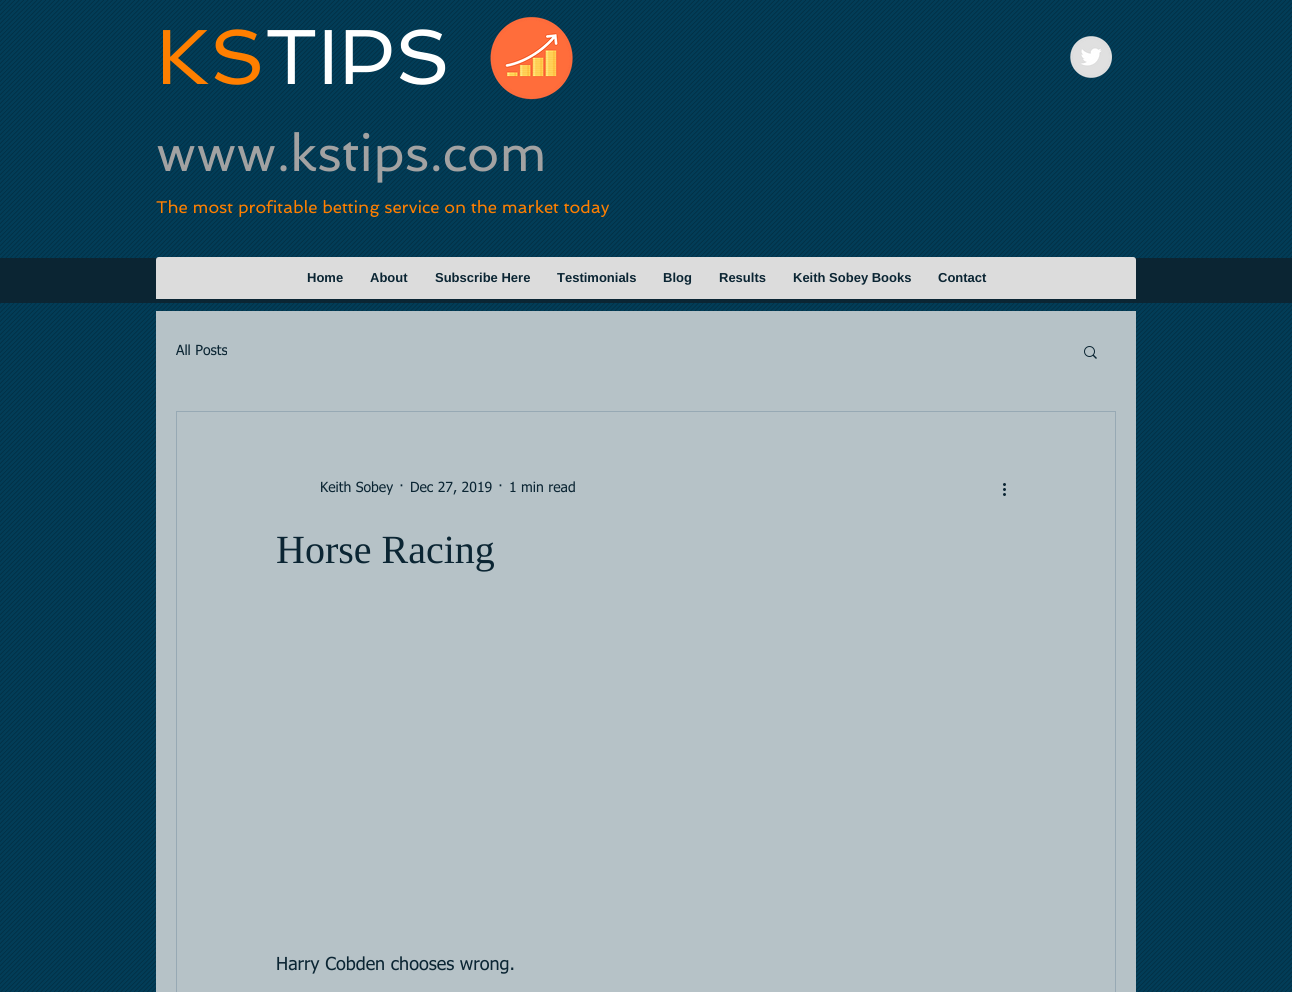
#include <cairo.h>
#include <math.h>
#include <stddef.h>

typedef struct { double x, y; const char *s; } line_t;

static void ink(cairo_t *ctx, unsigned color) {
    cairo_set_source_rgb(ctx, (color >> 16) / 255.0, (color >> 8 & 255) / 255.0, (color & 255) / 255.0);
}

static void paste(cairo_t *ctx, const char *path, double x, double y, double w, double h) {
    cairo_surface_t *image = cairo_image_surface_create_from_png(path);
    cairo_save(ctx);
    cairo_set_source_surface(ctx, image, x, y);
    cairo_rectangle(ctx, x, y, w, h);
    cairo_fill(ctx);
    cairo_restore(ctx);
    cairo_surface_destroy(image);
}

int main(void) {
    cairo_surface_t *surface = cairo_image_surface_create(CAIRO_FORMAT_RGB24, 1292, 992);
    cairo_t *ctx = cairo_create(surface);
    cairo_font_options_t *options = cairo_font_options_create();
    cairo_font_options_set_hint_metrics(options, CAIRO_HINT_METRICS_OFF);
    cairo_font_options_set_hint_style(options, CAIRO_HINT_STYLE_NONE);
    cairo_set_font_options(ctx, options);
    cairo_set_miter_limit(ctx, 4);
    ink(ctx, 0x023D58);
    cairo_paint(ctx);
    paste(ctx, "media/1.png", 0, 0, 1292, 992);
    cairo_select_font_face(ctx, "Spinnaker", CAIRO_FONT_SLANT_NORMAL, CAIRO_FONT_WEIGHT_NORMAL);
    cairo_set_font_size(ctx, 78);
    ink(ctx, 0xFF7F00);
    cairo_move_to(ctx, 156, 84);
    cairo_show_text(ctx, "KS");
    ink(ctx, 0xFFFFFF);
    cairo_move_to(ctx, 265, 84);
    cairo_show_text(ctx, "TIPS");
    paste(ctx, "media/2.png", 490, 16, 83, 84);
    paste(ctx, "media/3.png", 1070, 36, 42, 42);
    cairo_set_font_size(ctx, 51);
    ink(ctx, 0xA2A2A2);
    cairo_move_to(ctx, 156, 171);
    cairo_show_text(ctx, "www.kstips.com");
    cairo_set_font_size(ctx, 17);
    ink(ctx, 0xFF7F00);
    cairo_move_to(ctx, 156, 213);
    cairo_show_text(ctx, "The most profitable betting service on the market today");
    ink(ctx, 0x0B2533);
    cairo_rectangle(ctx, 0, 258, 1292, 45);
    cairo_fill(ctx);
    ink(ctx, 0xDCDCDC);
    cairo_new_path(ctx);
    cairo_move_to(ctx, 159, 258.5);
    cairo_line_to(ctx, 1133, 258.5);
    cairo_curve_to(ctx, 1134, 258.5, 1134.5, 259, 1134.5, 260);
    cairo_line_to(ctx, 1134.5, 297.5);
    cairo_line_to(ctx, 157.5, 297.5);
    cairo_line_to(ctx, 157.5, 260);
    cairo_curve_to(ctx, 157.5, 259, 158, 258.5, 159, 258.5);
    cairo_close_path(ctx);
    cairo_fill_preserve(ctx);
    cairo_set_line_width(ctx, 3);
    cairo_stroke(ctx);
    cairo_select_font_face(ctx, "Liberation Sans", CAIRO_FONT_SLANT_NORMAL, CAIRO_FONT_WEIGHT_BOLD);
    cairo_set_font_size(ctx, 13);
    ink(ctx, 0x0B2533);
    {
        static const line_t items[] = {
            {307, 282, "Home"},
            {370, 282, "About"},
            {435, 282, "Subscribe Here"},
            {557, 282, "Testimonials"},
            {663, 282, "Blog"},
            {719, 282, "Results"},
            {793, 282, "Keith Sobey Books"},
            {938, 282, "Contact"},
        };
        for (size_t i = 0; i < sizeof items / sizeof *items; i++) {
            cairo_move_to(ctx, items[i].x, items[i].y);
            cairo_show_text(ctx, items[i].s);
        }
    }
    ink(ctx, 0xB6C2C7);
    cairo_rectangle(ctx, 156, 311, 980, 681);
    cairo_fill(ctx);
    cairo_select_font_face(ctx, "tahoma", CAIRO_FONT_SLANT_NORMAL, CAIRO_FONT_WEIGHT_NORMAL);
    cairo_set_font_size(ctx, 14);
    ink(ctx, 0x0B2533);
    cairo_move_to(ctx, 176, 355);
    cairo_show_text(ctx, "All Posts");
    paste(ctx, "media/4.png", 1084, 346, 13, 13);
    cairo_rectangle(ctx, 176.5, 411.5, 939, 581);
    ink(ctx, 0x97A9B4);
    cairo_set_line_width(ctx, 1);
    cairo_stroke(ctx);
    ink(ctx, 0x0B2533);
    {
        static const line_t items[] = {
            {320, 492, "Keith Sobey"},
            {399, 492, "·"},
            {410, 492, "Dec 27, 2019"},
            {498, 492, "·"},
            {509, 492, "1 min read"},
        };
        for (size_t i = 0; i < sizeof items / sizeof *items; i++) {
            cairo_move_to(ctx, items[i].x, items[i].y);
            cairo_show_text(ctx, items[i].s);
        }
    }
    paste(ctx, "media/5.png", 1003, 483, 3, 13);
    cairo_select_font_face(ctx, "Liberation Serif", CAIRO_FONT_SLANT_NORMAL, CAIRO_FONT_WEIGHT_NORMAL);
    cairo_set_font_size(ctx, 40);
    cairo_move_to(ctx, 276, 563);
    cairo_show_text(ctx, "Horse Racing");
    cairo_select_font_face(ctx, "tahoma", CAIRO_FONT_SLANT_NORMAL, CAIRO_FONT_WEIGHT_NORMAL);
    cairo_set_font_size(ctx, 18);
    cairo_move_to(ctx, 276, 970);
    cairo_show_text(ctx, "Harry Cobden chooses wrong.");
    cairo_surface_write_to_png(surface, "image.png");
    cairo_font_options_destroy(options);
    cairo_destroy(ctx);
    cairo_surface_destroy(surface);
    return 0;
}
